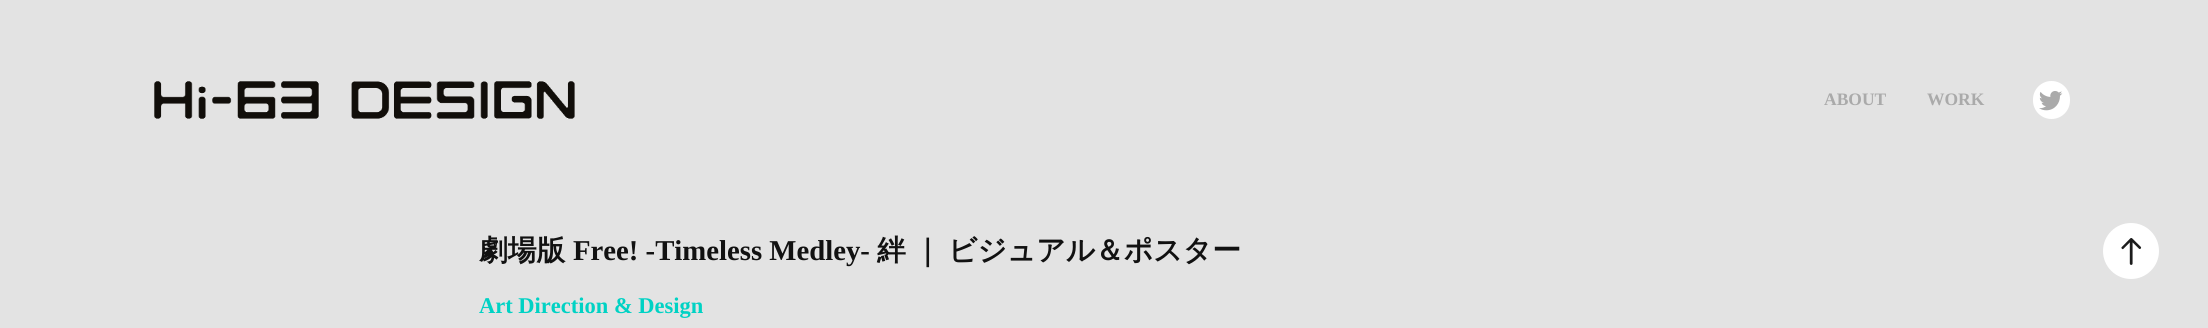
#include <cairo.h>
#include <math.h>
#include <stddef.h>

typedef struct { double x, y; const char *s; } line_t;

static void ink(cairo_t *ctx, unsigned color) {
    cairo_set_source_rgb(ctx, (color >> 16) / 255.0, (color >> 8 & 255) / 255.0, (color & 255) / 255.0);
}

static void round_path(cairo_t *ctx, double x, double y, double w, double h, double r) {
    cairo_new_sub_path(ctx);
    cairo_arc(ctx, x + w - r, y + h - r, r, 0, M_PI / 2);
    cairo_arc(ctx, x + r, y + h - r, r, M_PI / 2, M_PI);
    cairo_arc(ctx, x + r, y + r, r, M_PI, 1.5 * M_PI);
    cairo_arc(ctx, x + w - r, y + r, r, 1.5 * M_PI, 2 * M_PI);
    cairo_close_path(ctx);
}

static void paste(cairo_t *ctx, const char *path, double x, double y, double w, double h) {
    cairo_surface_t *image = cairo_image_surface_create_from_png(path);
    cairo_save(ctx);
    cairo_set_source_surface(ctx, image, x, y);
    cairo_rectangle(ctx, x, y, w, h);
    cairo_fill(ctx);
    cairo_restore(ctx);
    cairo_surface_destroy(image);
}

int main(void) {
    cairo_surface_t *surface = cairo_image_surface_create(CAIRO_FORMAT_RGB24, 2208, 328);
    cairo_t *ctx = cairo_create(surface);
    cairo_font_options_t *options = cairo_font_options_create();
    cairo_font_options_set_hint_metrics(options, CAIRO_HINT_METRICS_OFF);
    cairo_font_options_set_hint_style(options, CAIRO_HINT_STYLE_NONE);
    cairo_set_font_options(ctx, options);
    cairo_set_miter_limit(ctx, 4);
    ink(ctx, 0xE3E3E3);
    cairo_paint(ctx);
    paste(ctx, "media/1.png", 154, 81, 421, 38);
    cairo_select_font_face(ctx, "Liberation Serif", CAIRO_FONT_SLANT_NORMAL, CAIRO_FONT_WEIGHT_BOLD);
    cairo_set_font_size(ctx, 17.5);
    ink(ctx, 0xAAAAAA);
    cairo_move_to(ctx, 1824, 105);
    cairo_show_text(ctx, "ABOUT");
    cairo_move_to(ctx, 1927, 105);
    cairo_show_text(ctx, "WORK");
    ink(ctx, 0xFFFFFF);
    round_path(ctx, 2033, 81, 37, 38, 18.5);
    cairo_fill(ctx);
    paste(ctx, "media/2.png", 2039, 91, 24, 20);
    cairo_select_font_face(ctx, "WenQuanYi Zen Hei", CAIRO_FONT_SLANT_NORMAL, CAIRO_FONT_WEIGHT_BOLD);
    cairo_set_font_size(ctx, 28.75);
    ink(ctx, 0x111111);
    cairo_move_to(ctx, 479, 260);
    cairo_show_text(ctx, "劇場版");
    cairo_select_font_face(ctx, "Liberation Serif", CAIRO_FONT_SLANT_NORMAL, CAIRO_FONT_WEIGHT_BOLD);
    cairo_move_to(ctx, 573, 260);
    cairo_show_text(ctx, "Free! -Timeless Medley-");
    cairo_select_font_face(ctx, "WenQuanYi Zen Hei", CAIRO_FONT_SLANT_NORMAL, CAIRO_FONT_WEIGHT_BOLD);
    {
        static const line_t items[] = {
            {877, 260, "絆"},
            {913, 260, "｜"},
            {948, 260, "ビジュアル＆ポスター"},
        };
        for (size_t i = 0; i < sizeof items / sizeof *items; i++) {
            cairo_move_to(ctx, items[i].x, items[i].y);
            cairo_show_text(ctx, items[i].s);
        }
    }
    cairo_select_font_face(ctx, "Liberation Serif", CAIRO_FONT_SLANT_NORMAL, CAIRO_FONT_WEIGHT_BOLD);
    cairo_set_font_size(ctx, 22.5);
    ink(ctx, 0x00D2C4);
    cairo_move_to(ctx, 479, 313);
    cairo_show_text(ctx, "Art Direction & Design");
    ink(ctx, 0xFFFFFF);
    cairo_new_path(ctx);
    cairo_arc(ctx, 2131, 251, 28, 0, 2 * M_PI);
    cairo_fill(ctx);
    paste(ctx, "media/3.png", 2121, 238, 21, 27);
    cairo_surface_write_to_png(surface, "image.png");
    cairo_font_options_destroy(options);
    cairo_destroy(ctx);
    cairo_surface_destroy(surface);
    return 0;
}
